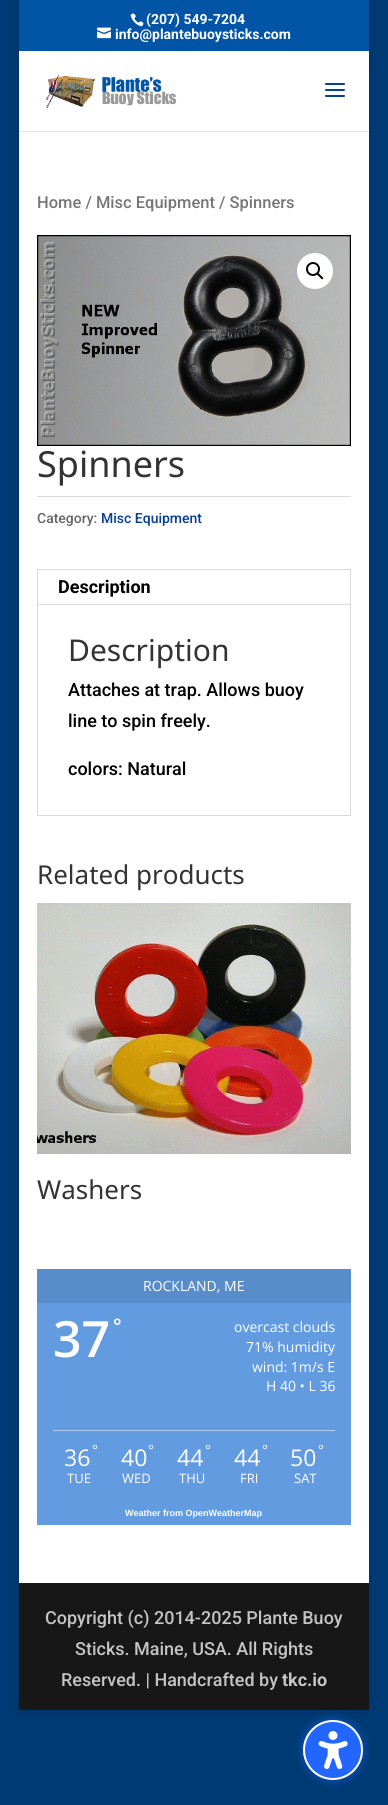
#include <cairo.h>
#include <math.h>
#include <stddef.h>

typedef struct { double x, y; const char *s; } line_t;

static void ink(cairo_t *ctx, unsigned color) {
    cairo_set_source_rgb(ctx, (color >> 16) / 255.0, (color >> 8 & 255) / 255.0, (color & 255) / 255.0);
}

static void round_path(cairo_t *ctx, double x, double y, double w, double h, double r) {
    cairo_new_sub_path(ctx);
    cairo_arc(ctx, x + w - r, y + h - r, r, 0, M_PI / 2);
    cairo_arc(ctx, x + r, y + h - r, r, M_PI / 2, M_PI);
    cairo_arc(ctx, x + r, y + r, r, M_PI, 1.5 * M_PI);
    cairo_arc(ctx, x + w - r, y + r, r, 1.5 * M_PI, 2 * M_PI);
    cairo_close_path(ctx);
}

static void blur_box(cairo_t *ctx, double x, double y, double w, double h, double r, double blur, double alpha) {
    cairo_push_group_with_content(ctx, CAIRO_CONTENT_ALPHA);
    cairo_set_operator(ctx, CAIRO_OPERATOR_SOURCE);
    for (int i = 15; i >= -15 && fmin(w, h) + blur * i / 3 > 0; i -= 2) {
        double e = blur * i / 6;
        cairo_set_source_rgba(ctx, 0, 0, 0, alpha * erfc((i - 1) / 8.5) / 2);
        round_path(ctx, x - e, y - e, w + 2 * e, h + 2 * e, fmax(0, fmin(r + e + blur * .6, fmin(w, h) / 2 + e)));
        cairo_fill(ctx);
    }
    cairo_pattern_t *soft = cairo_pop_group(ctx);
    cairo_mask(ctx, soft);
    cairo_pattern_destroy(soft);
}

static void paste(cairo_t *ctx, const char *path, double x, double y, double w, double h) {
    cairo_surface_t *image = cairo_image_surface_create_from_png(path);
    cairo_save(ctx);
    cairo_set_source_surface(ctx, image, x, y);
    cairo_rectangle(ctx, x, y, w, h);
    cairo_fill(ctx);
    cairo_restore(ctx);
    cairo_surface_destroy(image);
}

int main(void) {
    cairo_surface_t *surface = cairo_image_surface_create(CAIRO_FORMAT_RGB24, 388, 1805);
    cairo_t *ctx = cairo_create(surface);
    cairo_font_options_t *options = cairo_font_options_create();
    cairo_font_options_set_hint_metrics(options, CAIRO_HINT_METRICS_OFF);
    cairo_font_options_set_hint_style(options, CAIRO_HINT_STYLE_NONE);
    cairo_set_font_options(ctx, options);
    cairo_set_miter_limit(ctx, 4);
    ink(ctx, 0x003A74);
    cairo_paint(ctx);
    ink(ctx, 0x000000);
    blur_box(ctx, 19, 0, 350, 1710, 0, 5, 0.2);
    ink(ctx, 0x0154A6);
    cairo_rectangle(ctx, 19, 0, 350, 51);
    cairo_fill(ctx);
    paste(ctx, "media/1.png", 130, 13, 14, 14);
    cairo_select_font_face(ctx, "Roboto", CAIRO_FONT_SLANT_NORMAL, CAIRO_FONT_WEIGHT_BOLD);
    cairo_set_font_size(ctx, 14);
    ink(ctx, 0xFFFFFF);
    cairo_move_to(ctx, 146, 24);
    cairo_show_text(ctx, "(207) 549-7204");
    paste(ctx, "media/2.png", 97, 27, 14, 12);
    cairo_move_to(ctx, 115, 39);
    cairo_show_text(ctx, "info@plantebuoysticks.com");
    ink(ctx, 0xE6E6E6);
    cairo_rectangle(ctx, 19, 131, 350, 1);
    cairo_fill(ctx);
    ink(ctx, 0xFFFFFF);
    cairo_rectangle(ctx, 19, 51, 350, 80);
    cairo_fill(ctx);
    paste(ctx, "media/3.png", 46, 74, 131, 34);
    paste(ctx, "media/4.png", 325, 83, 20, 14);
    cairo_rectangle(ctx, 19, 132, 350, 1451);
    cairo_fill(ctx);
    cairo_select_font_face(ctx, "Roboto Medium", CAIRO_FONT_SLANT_NORMAL, CAIRO_FONT_WEIGHT_NORMAL);
    cairo_set_font_size(ctx, 16.5);
    ink(ctx, 0x767676);
    cairo_move_to(ctx, 37, 208);
    cairo_show_text(ctx, "Home / Misc Equipment / Spinners");
    paste(ctx, "media/5.png", 37, 235, 314, 211);
    ink(ctx, 0xFFFFFF);
    cairo_arc(ctx, 315, 271, 18, 0, 2 * M_PI);
    cairo_fill(ctx);
    cairo_arc(ctx, 313, 269, 6, 0, 2 * M_PI);
    ink(ctx, 0x000000);
    cairo_stroke(ctx);
    cairo_new_path(ctx);
    cairo_move_to(ctx, 317.5, 273.5);
    cairo_curve_to(ctx, 318.5, 272, 320, 275, 321, 275.5);
    cairo_curve_to(ctx, 321.5, 276, 324, 278, 323, 279);
    cairo_curve_to(ctx, 322, 280, 320, 277.5, 319.5, 277);
    cairo_curve_to(ctx, 319, 276, 316, 274.5, 317.5, 273.5);
    cairo_close_path(ctx);
    cairo_fill(ctx);
    cairo_select_font_face(ctx, "Noto Sans", CAIRO_FONT_SLANT_NORMAL, CAIRO_FONT_WEIGHT_NORMAL);
    cairo_set_font_size(ctx, 36);
    ink(ctx, 0x333333);
    cairo_move_to(ctx, 37, 477);
    cairo_show_text(ctx, "Spinners");
    ink(ctx, 0xDADADA);
    cairo_rectangle(ctx, 37, 496, 314, 1);
    cairo_fill(ctx);
    cairo_select_font_face(ctx, "Roboto Medium", CAIRO_FONT_SLANT_NORMAL, CAIRO_FONT_WEIGHT_NORMAL);
    cairo_set_font_size(ctx, 14);
    ink(ctx, 0x666666);
    cairo_move_to(ctx, 37, 523);
    cairo_show_text(ctx, "Category:");
    ink(ctx, 0x073F94);
    cairo_move_to(ctx, 101, 523);
    cairo_show_text(ctx, "Misc Equipment");
    cairo_rectangle(ctx, 37.5, 569.5, 313, 246);
    ink(ctx, 0xD9D9D9);
    cairo_set_line_width(ctx, 1);
    cairo_stroke(ctx);
    ink(ctx, 0xE0DADF);
    cairo_rectangle(ctx, 38, 604, 312, 1);
    cairo_fill(ctx);
    cairo_select_font_face(ctx, "Roboto", CAIRO_FONT_SLANT_NORMAL, CAIRO_FONT_WEIGHT_BOLD);
    cairo_set_font_size(ctx, 18);
    ink(ctx, 0x000000);
    cairo_move_to(ctx, 58, 593);
    cairo_show_text(ctx, "Description");
    cairo_select_font_face(ctx, "Noto Sans", CAIRO_FONT_SLANT_NORMAL, CAIRO_FONT_WEIGHT_NORMAL);
    cairo_set_font_size(ctx, 30);
    ink(ctx, 0x333333);
    cairo_move_to(ctx, 68, 661);
    cairo_show_text(ctx, "Description");
    cairo_select_font_face(ctx, "Roboto Medium", CAIRO_FONT_SLANT_NORMAL, CAIRO_FONT_WEIGHT_NORMAL);
    cairo_set_font_size(ctx, 18);
    ink(ctx, 0x000000);
    {
        static const line_t items[] = {
            {68, 696, "Attaches at trap. Allows buoy"},
            {68, 727, "line to spin freely."},
            {68, 775, "colors: Natural"},
        };
        for (size_t i = 0; i < sizeof items / sizeof *items; i++) {
            cairo_move_to(ctx, items[i].x, items[i].y);
            cairo_show_text(ctx, items[i].s);
        }
    }
    cairo_select_font_face(ctx, "Noto Sans", CAIRO_FONT_SLANT_NORMAL, CAIRO_FONT_WEIGHT_NORMAL);
    cairo_set_font_size(ctx, 26);
    ink(ctx, 0x333333);
    cairo_move_to(ctx, 37, 884);
    cairo_show_text(ctx, "Related products");
    paste(ctx, "media/6.png", 37, 903, 314, 251);
    cairo_move_to(ctx, 37, 1199);
    cairo_show_text(ctx, "Washers");
    ink(ctx, 0x629BE0);
    cairo_rectangle(ctx, 37, 1303, 314, 222);
    cairo_fill(ctx);
    ink(ctx, 0x588CCA);
    cairo_rectangle(ctx, 37, 1269, 314, 34);
    cairo_fill(ctx);
    cairo_select_font_face(ctx, "Open Sans", CAIRO_FONT_SLANT_NORMAL, CAIRO_FONT_WEIGHT_NORMAL);
    cairo_set_font_size(ctx, 14);
    ink(ctx, 0xFFFFFF);
    cairo_move_to(ctx, 143, 1291);
    cairo_show_text(ctx, "ROCKLAND, ME");
    cairo_select_font_face(ctx, "Open Sans SemiBold", CAIRO_FONT_SLANT_NORMAL, CAIRO_FONT_WEIGHT_NORMAL);
    cairo_set_font_size(ctx, 50);
    cairo_move_to(ctx, 53, 1357);
    cairo_show_text(ctx, "37");
    cairo_set_font_size(ctx, 20);
    cairo_move_to(ctx, 113, 1333);
    cairo_show_text(ctx, "°");
    cairo_select_font_face(ctx, "Open Sans", CAIRO_FONT_SLANT_NORMAL, CAIRO_FONT_WEIGHT_NORMAL);
    cairo_set_font_size(ctx, 14);
    {
        static const line_t items[] = {
            {234, 1332, "overcast clouds"},
            {246, 1352, "71% humidity"},
            {252, 1372, "wind: 1m/s E"},
            {266, 1391, "H 40 • L 36"},
        };
        for (size_t i = 0; i < sizeof items / sizeof *items; i++) {
            cairo_move_to(ctx, items[i].x, items[i].y);
            cairo_show_text(ctx, items[i].s);
        }
    }
    ink(ctx, 0xB1CDF0);
    cairo_rectangle(ctx, 53, 1430, 282, 1);
    cairo_fill(ctx);
    ink(ctx, 0xFFFFFF);
    cairo_move_to(ctx, 92, 1455);
    cairo_show_text(ctx, "°");
    cairo_set_font_size(ctx, 23);
    cairo_move_to(ctx, 64, 1466);
    cairo_show_text(ctx, "36");
    cairo_set_font_size(ctx, 13);
    cairo_move_to(ctx, 67, 1483);
    cairo_show_text(ctx, "TUE");
    cairo_set_font_size(ctx, 14);
    cairo_move_to(ctx, 148, 1455);
    cairo_show_text(ctx, "°");
    cairo_set_font_size(ctx, 23);
    cairo_move_to(ctx, 121, 1466);
    cairo_show_text(ctx, "40");
    cairo_set_font_size(ctx, 13);
    cairo_move_to(ctx, 122, 1483);
    cairo_show_text(ctx, "WED");
    cairo_set_font_size(ctx, 14);
    cairo_move_to(ctx, 205, 1455);
    cairo_show_text(ctx, "°");
    cairo_set_font_size(ctx, 23);
    cairo_move_to(ctx, 177, 1466);
    cairo_show_text(ctx, "44");
    cairo_set_font_size(ctx, 13);
    cairo_move_to(ctx, 179, 1483);
    cairo_show_text(ctx, "THU");
    cairo_set_font_size(ctx, 14);
    cairo_move_to(ctx, 262, 1455);
    cairo_show_text(ctx, "°");
    cairo_set_font_size(ctx, 23);
    cairo_move_to(ctx, 234, 1466);
    cairo_show_text(ctx, "44");
    cairo_set_font_size(ctx, 13);
    cairo_move_to(ctx, 240, 1483);
    cairo_show_text(ctx, "FRI");
    cairo_set_font_size(ctx, 14);
    cairo_move_to(ctx, 318, 1455);
    cairo_show_text(ctx, "°");
    cairo_set_font_size(ctx, 23);
    cairo_move_to(ctx, 290, 1466);
    cairo_show_text(ctx, "50");
    cairo_set_font_size(ctx, 13);
    cairo_move_to(ctx, 294, 1483);
    cairo_show_text(ctx, "SAT");
    cairo_select_font_face(ctx, "Liberation Sans", CAIRO_FONT_SLANT_NORMAL, CAIRO_FONT_WEIGHT_BOLD);
    cairo_set_font_size(ctx, 9);
    cairo_move_to(ctx, 125, 1516);
    cairo_show_text(ctx, "Weather from OpenWeatherMap");
    ink(ctx, 0x171717);
    cairo_rectangle(ctx, 19, 1583, 350, 127);
    cairo_fill(ctx);
    cairo_select_font_face(ctx, "Roboto Medium", CAIRO_FONT_SLANT_NORMAL, CAIRO_FONT_WEIGHT_NORMAL);
    cairo_set_font_size(ctx, 18);
    ink(ctx, 0xC4C4C4);
    {
        static const line_t items[] = {
            {45, 1624, "Copyright (c) 2014-2025 Plante Buoy"},
            {75, 1655, "Sticks. Maine, USA. All Rights"},
            {61, 1686, "Reserved. | Handcrafted by"},
        };
        for (size_t i = 0; i < sizeof items / sizeof *items; i++) {
            cairo_move_to(ctx, items[i].x, items[i].y);
            cairo_show_text(ctx, items[i].s);
        }
    }
    cairo_select_font_face(ctx, "Roboto", CAIRO_FONT_SLANT_NORMAL, CAIRO_FONT_WEIGHT_BOLD);
    cairo_move_to(ctx, 282, 1686);
    cairo_show_text(ctx, "tkc.io");
    ink(ctx, 0x2266FF);
    blur_box(ctx, 301, 1718, 64, 64, 32, 4, 0.4);
    ink(ctx, 0x2266FF);
    cairo_arc(ctx, 333, 1750, 29, 0, 2 * M_PI);
    cairo_fill_preserve(ctx);
    ink(ctx, 0xFFFFFF);
    cairo_set_line_width(ctx, 2);
    cairo_stroke(ctx);
    paste(ctx, "media/7.png", 318, 1731, 30, 38);
    cairo_surface_write_to_png(surface, "image.png");
    cairo_font_options_destroy(options);
    cairo_destroy(ctx);
    cairo_surface_destroy(surface);
    return 0;
}
